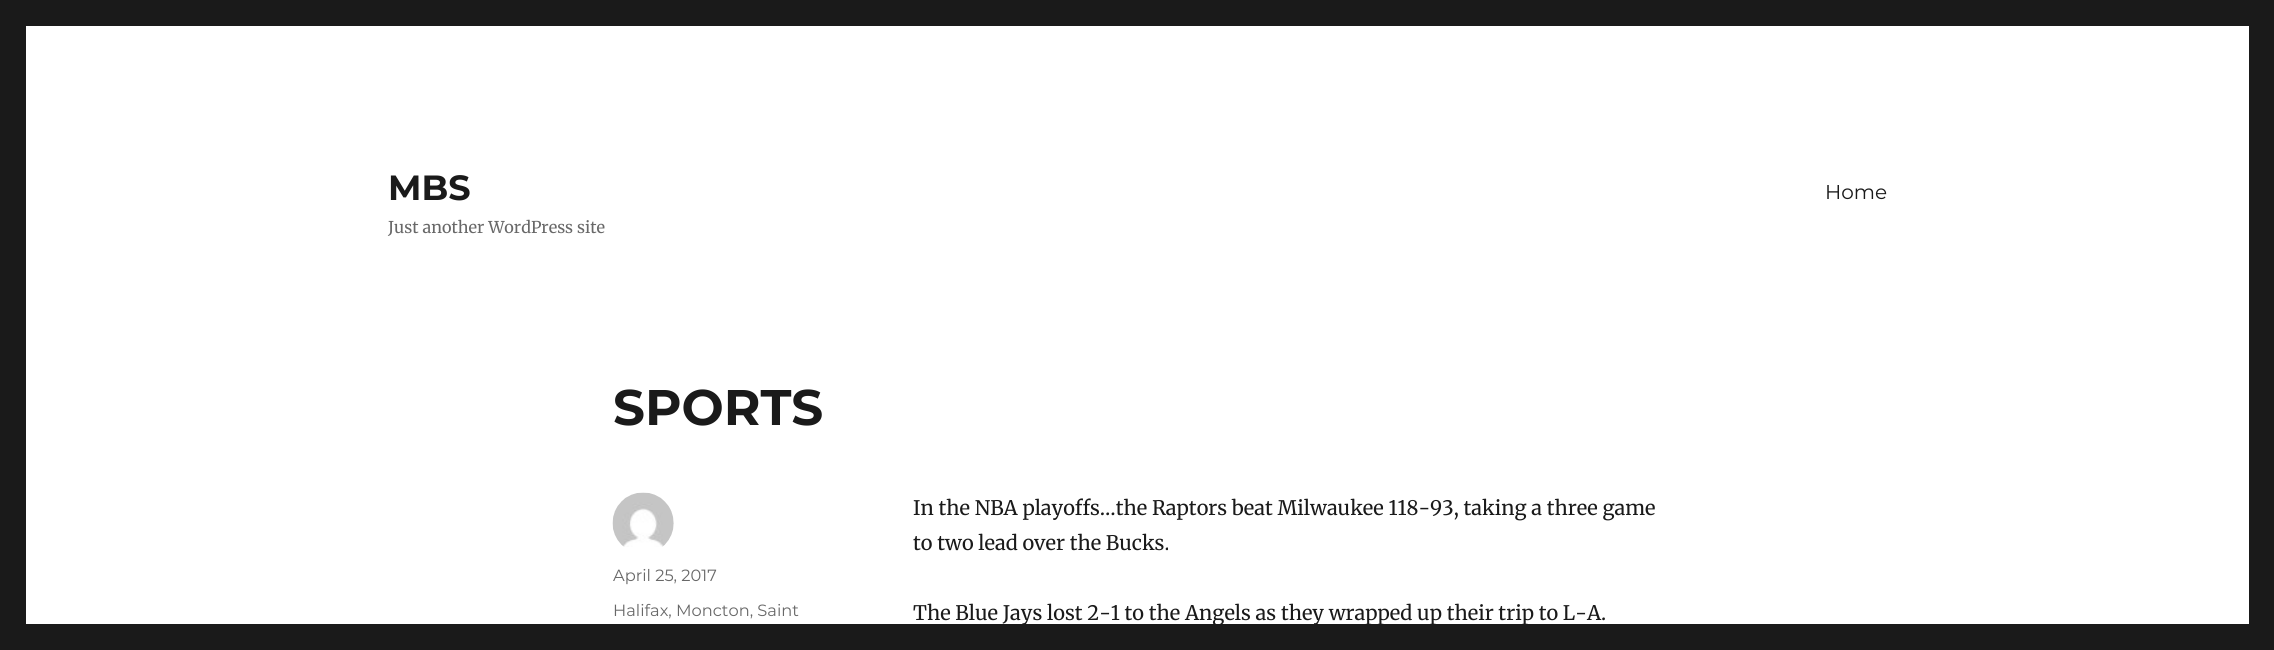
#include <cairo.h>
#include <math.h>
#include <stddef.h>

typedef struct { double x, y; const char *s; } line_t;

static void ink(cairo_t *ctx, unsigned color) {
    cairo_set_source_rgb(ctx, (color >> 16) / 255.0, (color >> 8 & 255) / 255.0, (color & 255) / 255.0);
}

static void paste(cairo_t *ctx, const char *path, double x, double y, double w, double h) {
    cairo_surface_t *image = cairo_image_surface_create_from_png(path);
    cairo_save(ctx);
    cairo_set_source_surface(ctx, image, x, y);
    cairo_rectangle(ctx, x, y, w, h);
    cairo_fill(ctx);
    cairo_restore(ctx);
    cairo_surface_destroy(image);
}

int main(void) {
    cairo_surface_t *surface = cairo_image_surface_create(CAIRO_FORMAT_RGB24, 2274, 650);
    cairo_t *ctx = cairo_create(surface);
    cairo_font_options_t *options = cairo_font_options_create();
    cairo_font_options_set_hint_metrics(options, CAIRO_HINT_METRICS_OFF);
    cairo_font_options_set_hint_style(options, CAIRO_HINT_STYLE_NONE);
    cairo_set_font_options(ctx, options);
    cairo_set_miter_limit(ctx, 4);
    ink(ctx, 0x1A1A1A);
    cairo_paint(ctx);
    ink(ctx, 0xFFFFFF);
    cairo_rectangle(ctx, 26, 26, 2223, 598);
    cairo_fill(ctx);
    cairo_select_font_face(ctx, "Montserrat", CAIRO_FONT_SLANT_NORMAL, CAIRO_FONT_WEIGHT_BOLD);
    cairo_set_font_size(ctx, 35);
    ink(ctx, 0x1A1A1A);
    cairo_move_to(ctx, 388, 200);
    cairo_show_text(ctx, "MBS");
    cairo_select_font_face(ctx, "Merriweather", CAIRO_FONT_SLANT_NORMAL, CAIRO_FONT_WEIGHT_NORMAL);
    cairo_set_font_size(ctx, 16.25);
    ink(ctx, 0x686868);
    cairo_move_to(ctx, 388, 233);
    cairo_show_text(ctx, "Just another WordPress site");
    cairo_select_font_face(ctx, "Montserrat", CAIRO_FONT_SLANT_NORMAL, CAIRO_FONT_WEIGHT_NORMAL);
    cairo_set_font_size(ctx, 20);
    ink(ctx, 0x1A1A1A);
    cairo_move_to(ctx, 1825, 199);
    cairo_show_text(ctx, "Home");
    cairo_select_font_face(ctx, "Montserrat", CAIRO_FONT_SLANT_NORMAL, CAIRO_FONT_WEIGHT_BOLD);
    cairo_set_font_size(ctx, 50);
    cairo_move_to(ctx, 613, 425);
    cairo_show_text(ctx, "SPORTS");
    paste(ctx, "media/1.png", 612, 492, 62, 55);
    cairo_select_font_face(ctx, "Montserrat", CAIRO_FONT_SLANT_NORMAL, CAIRO_FONT_WEIGHT_NORMAL);
    cairo_set_font_size(ctx, 16.25);
    ink(ctx, 0x686868);
    cairo_move_to(ctx, 613, 581);
    cairo_show_text(ctx, "April 25, 2017");
    cairo_move_to(ctx, 613, 616);
    cairo_show_text(ctx, "Halifax, Moncton, Saint");
    cairo_select_font_face(ctx, "Merriweather", CAIRO_FONT_SLANT_NORMAL, CAIRO_FONT_WEIGHT_NORMAL);
    cairo_set_font_size(ctx, 20);
    ink(ctx, 0x1A1A1A);
    {
        static const line_t items[] = {
            {913, 515, "In the NBA playoffs…the Raptors beat Milwaukee 118-93, taking a three game"},
            {913, 550, "to two lead over the Bucks."},
            {913, 620, "The Blue Jays lost 2-1 to the Angels as they wrapped up their trip to L-A."},
        };
        for (size_t i = 0; i < sizeof items / sizeof *items; i++) {
            cairo_move_to(ctx, items[i].x, items[i].y);
            cairo_show_text(ctx, items[i].s);
        }
    }
    cairo_surface_write_to_png(surface, "image.png");
    cairo_font_options_destroy(options);
    cairo_destroy(ctx);
    cairo_surface_destroy(surface);
    return 0;
}
